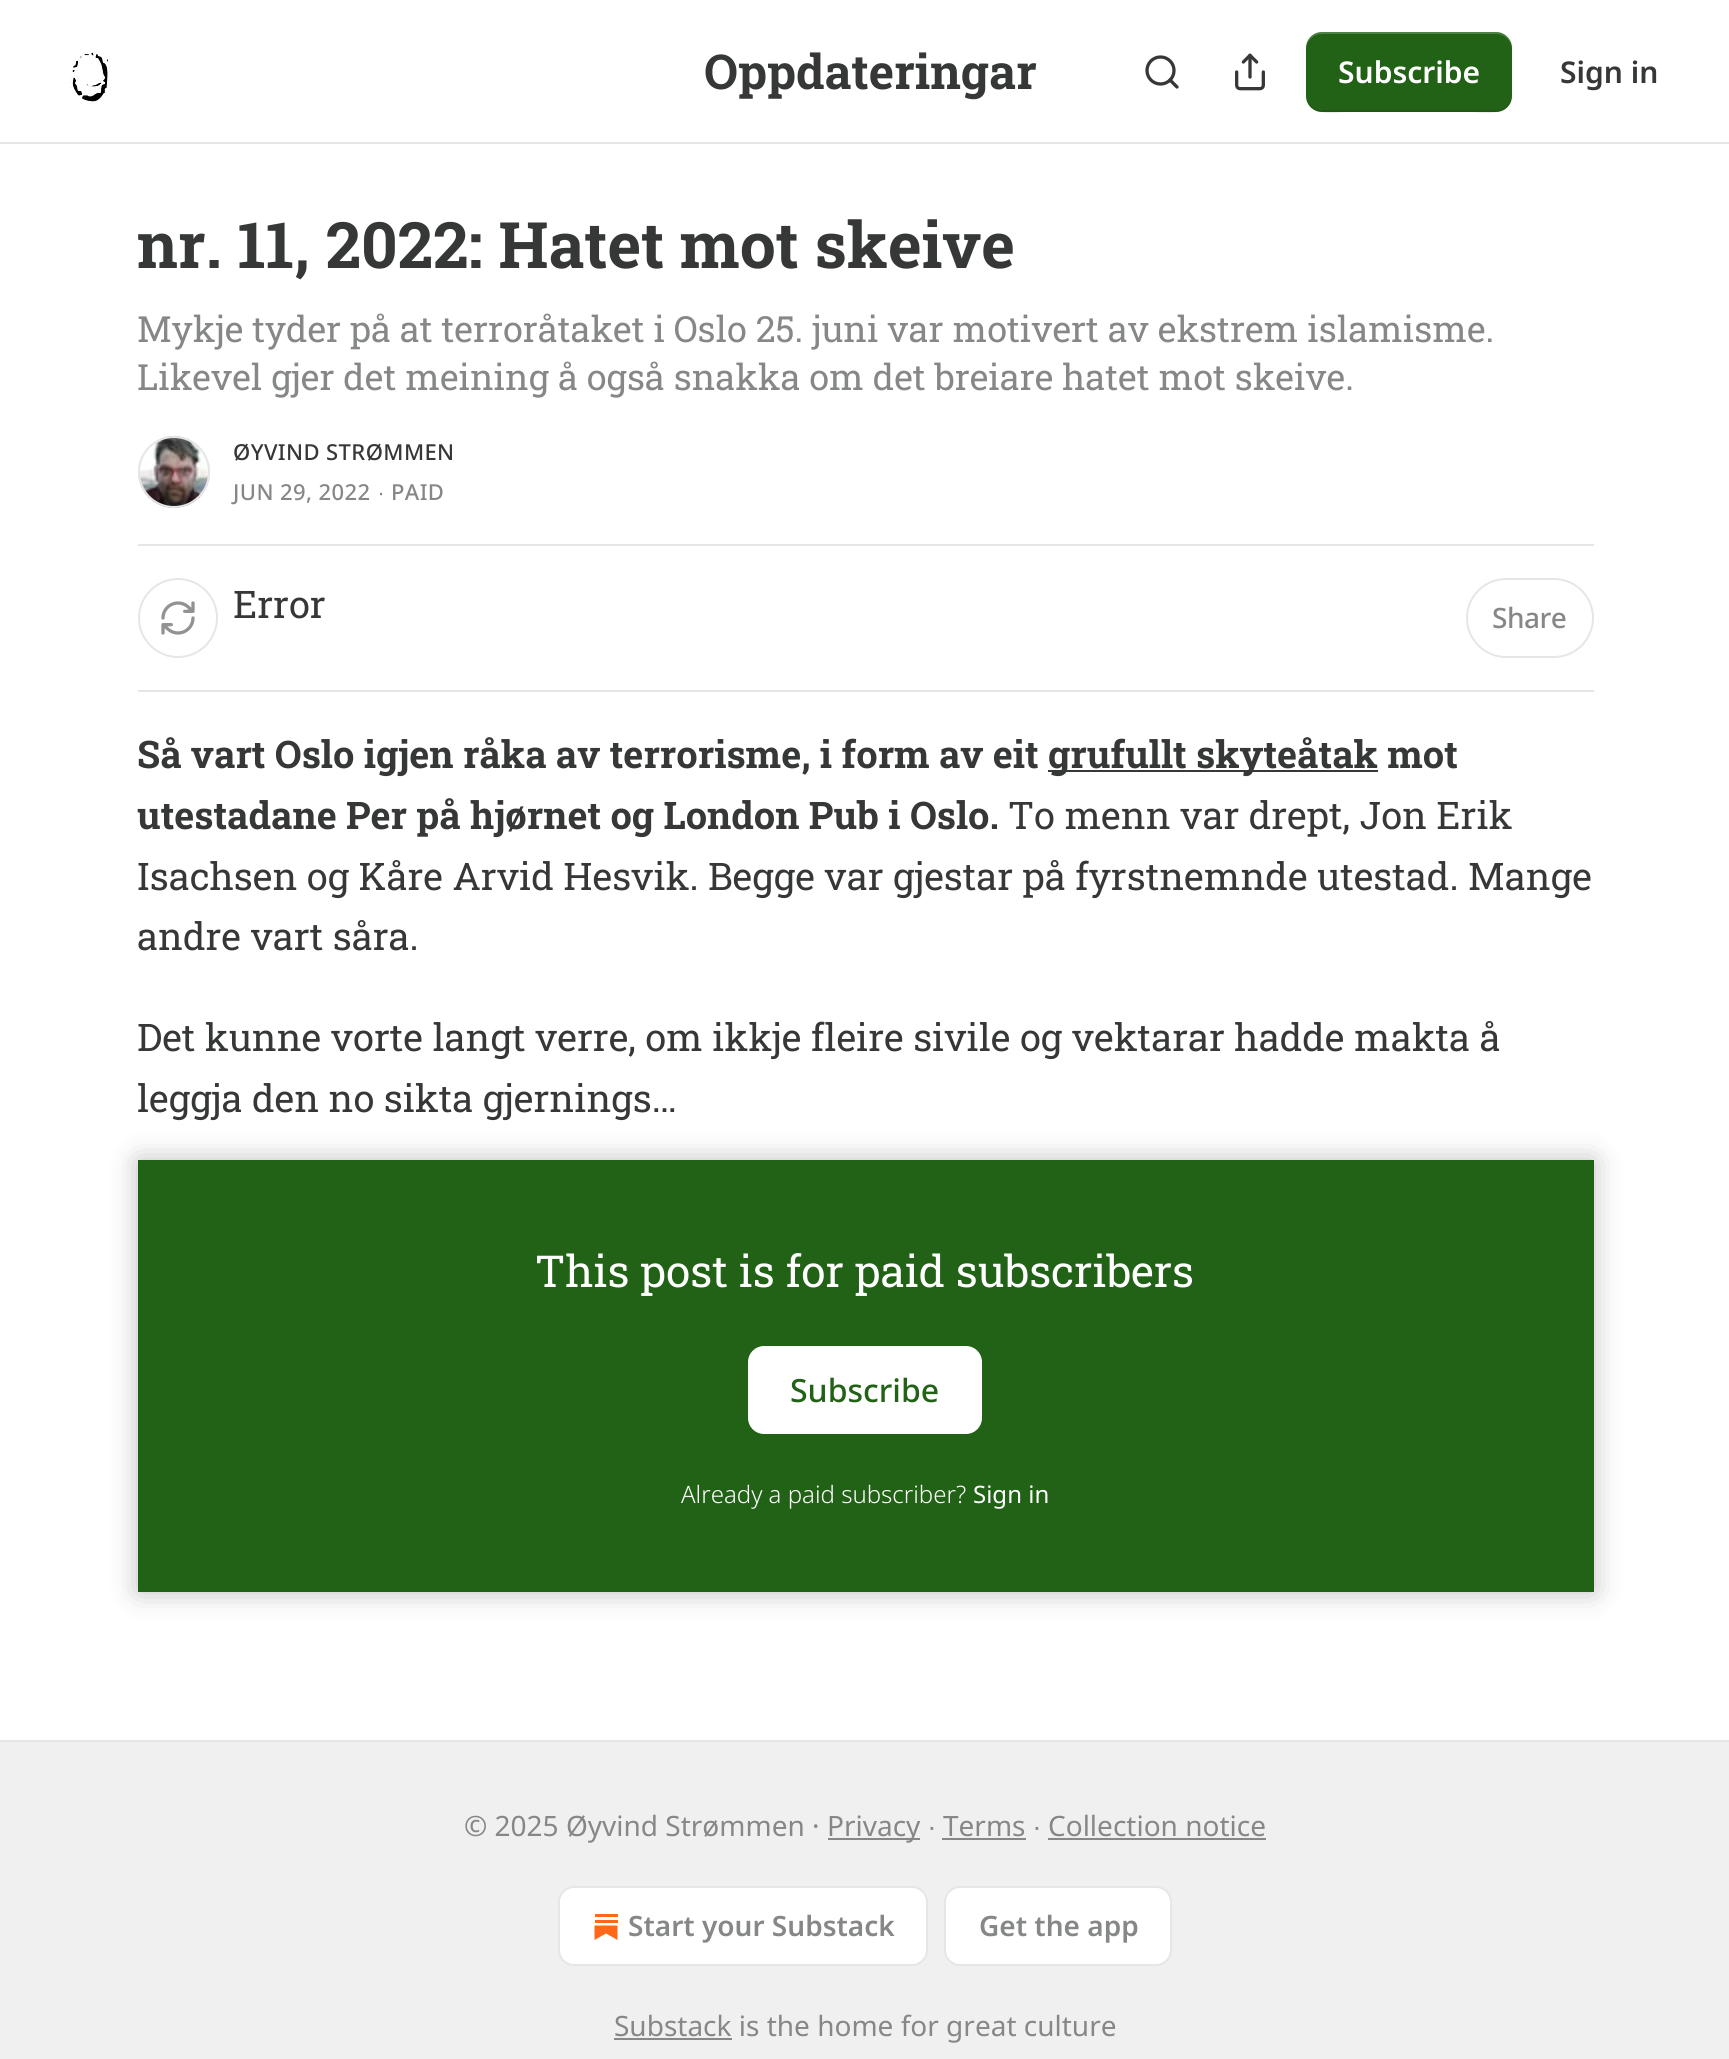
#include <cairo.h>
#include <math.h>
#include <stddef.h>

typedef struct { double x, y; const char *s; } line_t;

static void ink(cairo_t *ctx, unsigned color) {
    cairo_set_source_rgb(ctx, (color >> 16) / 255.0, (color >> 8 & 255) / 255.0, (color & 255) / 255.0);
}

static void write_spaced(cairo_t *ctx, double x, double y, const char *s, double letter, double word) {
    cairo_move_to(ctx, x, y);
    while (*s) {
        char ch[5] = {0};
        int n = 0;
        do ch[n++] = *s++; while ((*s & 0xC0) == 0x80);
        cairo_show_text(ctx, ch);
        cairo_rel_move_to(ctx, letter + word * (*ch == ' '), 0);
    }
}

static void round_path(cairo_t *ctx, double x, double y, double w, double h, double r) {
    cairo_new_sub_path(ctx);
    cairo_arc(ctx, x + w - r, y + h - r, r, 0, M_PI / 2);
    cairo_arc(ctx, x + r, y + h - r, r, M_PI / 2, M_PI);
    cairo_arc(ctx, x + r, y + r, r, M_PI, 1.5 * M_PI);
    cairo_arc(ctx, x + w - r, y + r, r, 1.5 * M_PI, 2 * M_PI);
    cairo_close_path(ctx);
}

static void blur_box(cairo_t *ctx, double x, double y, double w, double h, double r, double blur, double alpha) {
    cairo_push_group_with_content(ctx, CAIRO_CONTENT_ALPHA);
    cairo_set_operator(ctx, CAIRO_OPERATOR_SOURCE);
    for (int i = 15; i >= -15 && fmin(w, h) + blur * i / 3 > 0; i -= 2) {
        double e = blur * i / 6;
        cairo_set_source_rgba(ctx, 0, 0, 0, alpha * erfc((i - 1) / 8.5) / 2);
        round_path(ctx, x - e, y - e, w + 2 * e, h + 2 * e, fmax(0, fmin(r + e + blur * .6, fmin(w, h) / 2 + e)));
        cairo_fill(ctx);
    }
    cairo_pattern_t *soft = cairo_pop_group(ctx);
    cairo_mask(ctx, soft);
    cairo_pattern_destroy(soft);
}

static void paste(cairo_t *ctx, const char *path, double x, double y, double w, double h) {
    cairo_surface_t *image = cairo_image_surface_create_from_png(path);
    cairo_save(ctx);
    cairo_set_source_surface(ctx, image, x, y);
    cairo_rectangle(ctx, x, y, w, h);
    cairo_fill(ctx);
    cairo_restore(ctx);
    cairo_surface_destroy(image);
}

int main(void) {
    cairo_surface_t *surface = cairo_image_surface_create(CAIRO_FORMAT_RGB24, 1729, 2059);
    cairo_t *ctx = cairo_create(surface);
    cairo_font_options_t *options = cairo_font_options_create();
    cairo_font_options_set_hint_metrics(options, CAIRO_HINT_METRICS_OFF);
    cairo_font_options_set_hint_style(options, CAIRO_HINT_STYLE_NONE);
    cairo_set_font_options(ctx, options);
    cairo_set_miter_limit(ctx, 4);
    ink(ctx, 0xFFFFFF);
    cairo_paint(ctx);
    ink(ctx, 0xE6E6E6);
    cairo_rectangle(ctx, 0, 142, 1729, 2);
    cairo_fill(ctx);
    paste(ctx, "media/1.png", 70, 52, 40, 52);
    cairo_select_font_face(ctx, "Roboto Slab", CAIRO_FONT_SLANT_NORMAL, CAIRO_FONT_WEIGHT_BOLD);
    cairo_set_font_size(ctx, 48);
    ink(ctx, 0x363737);
    cairo_move_to(ctx, 704, 89);
    cairo_show_text(ctx, "Oppdateringar");
    cairo_new_path(ctx);
    cairo_arc(ctx, 1160.5, 70.5, 13.5, 0, 2 * M_PI);
    cairo_set_line_width(ctx, 3.3);
    cairo_stroke(ctx);
    cairo_new_path(ctx);
    cairo_move_to(ctx, 1177, 87);
    cairo_line_to(ctx, 1170, 80);
    cairo_set_line_cap(ctx, CAIRO_LINE_CAP_ROUND);
    cairo_set_line_join(ctx, CAIRO_LINE_JOIN_ROUND);
    cairo_stroke(ctx);
    paste(ctx, "media/2.png", 1235, 53, 30, 38);
    ink(ctx, 0x226216);
    round_path(ctx, 1306, 32, 206, 80, 16);
    cairo_fill(ctx);
    cairo_set_source_rgba(ctx, 0, 0, 0, 0.1);
    cairo_new_path(ctx);
    cairo_move_to(ctx, 1306, 94);
    cairo_curve_to(ctx, 1306, 119, 1335, 112, 1351, 112);
    cairo_line_to(ctx, 1467, 112);
    cairo_curve_to(ctx, 1483, 112, 1512, 119, 1512, 94);
    cairo_curve_to(ctx, 1512, 103, 1505, 110, 1496, 110);
    cairo_line_to(ctx, 1322, 110);
    cairo_curve_to(ctx, 1313, 110, 1306, 103, 1306, 94);
    cairo_close_path(ctx);
    cairo_fill(ctx);
    cairo_set_source_rgba(ctx, 1, 1, 1, 0.2);
    cairo_new_path(ctx);
    cairo_move_to(ctx, 1322, 34);
    cairo_line_to(ctx, 1496, 34);
    cairo_curve_to(ctx, 1505, 34, 1512, 41, 1512, 50);
    cairo_curve_to(ctx, 1512, 25, 1483, 32, 1467, 32);
    cairo_line_to(ctx, 1351, 32);
    cairo_curve_to(ctx, 1335, 32, 1306, 25, 1306, 50);
    cairo_curve_to(ctx, 1306, 41, 1313, 34, 1322, 34);
    cairo_close_path(ctx);
    cairo_fill(ctx);
    cairo_select_font_face(ctx, "Noto Sans SemiBold", CAIRO_FONT_SLANT_NORMAL, CAIRO_FONT_WEIGHT_NORMAL);
    cairo_set_font_size(ctx, 30);
    ink(ctx, 0xFFFFFF);
    cairo_move_to(ctx, 1338, 83);
    cairo_show_text(ctx, "Subscribe");
    ink(ctx, 0x363737);
    cairo_move_to(ctx, 1560, 83);
    cairo_show_text(ctx, "Sign in");
    cairo_select_font_face(ctx, "Roboto Slab", CAIRO_FONT_SLANT_NORMAL, CAIRO_FONT_WEIGHT_BOLD);
    cairo_set_font_size(ctx, 64);
    cairo_move_to(ctx, 137, 268);
    cairo_show_text(ctx, "nr. 11, 2022: Hatet mot skeive");
    cairo_select_font_face(ctx, "Roboto Slab", CAIRO_FONT_SLANT_NORMAL, CAIRO_FONT_WEIGHT_NORMAL);
    cairo_set_font_size(ctx, 36);
    ink(ctx, 0x868787);
    cairo_move_to(ctx, 137, 342);
    cairo_show_text(ctx, "Mykje tyder på at terroråtaket i Oslo 25. juni var motivert av ekstrem islamisme.");
    cairo_move_to(ctx, 137, 390);
    cairo_show_text(ctx, "Likevel gjer det meining å også snakka om det breiare hatet mot skeive.");
    cairo_new_path(ctx);
    cairo_arc(ctx, 174, 472, 35, 0, 2 * M_PI);
    ink(ctx, 0xE6E6E6);
    cairo_set_line_width(ctx, 2);
    cairo_set_line_cap(ctx, CAIRO_LINE_CAP_BUTT);
    cairo_set_line_join(ctx, CAIRO_LINE_JOIN_MITER);
    cairo_stroke(ctx);
    paste(ctx, "media/3.png", 138, 436, 72, 72);
    cairo_arc(ctx, 174, 472, 35, 0, 2 * M_PI);
    cairo_stroke(ctx);
    cairo_select_font_face(ctx, "Noto Sans Medium", CAIRO_FONT_SLANT_NORMAL, CAIRO_FONT_WEIGHT_NORMAL);
    cairo_set_font_size(ctx, 22);
    ink(ctx, 0x363737);
    write_spaced(ctx, 233, 460, "ØYVIND STRØMMEN", 0.4, 0);
    ink(ctx, 0x868787);
    write_spaced(ctx, 233, 500, "JUN 29, 2022", 0.4, 0);
    cairo_select_font_face(ctx, "Liberation Sans", CAIRO_FONT_SLANT_NORMAL, CAIRO_FONT_WEIGHT_NORMAL);
    write_spaced(ctx, 378, 500, "∙", 0.4, 0);
    cairo_select_font_face(ctx, "Noto Sans Medium", CAIRO_FONT_SLANT_NORMAL, CAIRO_FONT_WEIGHT_NORMAL);
    write_spaced(ctx, 391, 500, "PAID", 0.4, 0);
    ink(ctx, 0xE6E6E6);
    cairo_rectangle(ctx, 138, 544, 1456, 2);
    cairo_fill(ctx);
    cairo_rectangle(ctx, 138, 690, 1456, 2);
    cairo_fill(ctx);
    cairo_arc(ctx, 178, 618, 39, 0, 2 * M_PI);
    cairo_stroke(ctx);
    paste(ctx, "media/4.png", 161, 601, 34, 34);
    cairo_select_font_face(ctx, "Roboto Slab", CAIRO_FONT_SLANT_NORMAL, CAIRO_FONT_WEIGHT_NORMAL);
    cairo_set_font_size(ctx, 38);
    ink(ctx, 0x363737);
    cairo_move_to(ctx, 233, 618);
    cairo_show_text(ctx, "Error");
    round_path(ctx, 1467, 579, 126, 78, 39);
    ink(ctx, 0xE6E6E6);
    cairo_stroke(ctx);
    cairo_select_font_face(ctx, "Noto Sans Medium", CAIRO_FONT_SLANT_NORMAL, CAIRO_FONT_WEIGHT_NORMAL);
    cairo_set_font_size(ctx, 28);
    ink(ctx, 0x868787);
    write_spaced(ctx, 1492, 628, "Share", -0.5, 0);
    cairo_select_font_face(ctx, "Roboto Slab", CAIRO_FONT_SLANT_NORMAL, CAIRO_FONT_WEIGHT_BOLD);
    cairo_set_font_size(ctx, 38);
    ink(ctx, 0x363737);
    cairo_move_to(ctx, 137, 768);
    cairo_show_text(ctx, "Så vart Oslo igjen råka av terrorisme, i form av eit");
    cairo_rectangle(ctx, 1048, 770, 330, 2);
    cairo_fill(ctx);
    cairo_move_to(ctx, 1048, 768);
    cairo_show_text(ctx, "grufullt skyteåtak mot");
    cairo_move_to(ctx, 137, 829);
    cairo_show_text(ctx, "utestadane Per på hjørnet og London Pub i Oslo.");
    cairo_select_font_face(ctx, "Roboto Slab", CAIRO_FONT_SLANT_NORMAL, CAIRO_FONT_WEIGHT_NORMAL);
    {
        static const line_t items[] = {
            {1008, 829, "To menn var drept, Jon Erik"},
            {137, 890, "Isachsen og Kåre Arvid Hesvik. Begge var gjestar på fyrstnemnde utestad. Mange"},
            {137, 950, "andre vart såra."},
            {137, 1051, "Det kunne vorte langt verre, om ikkje fleire sivile og vektarar hadde makta å"},
            {137, 1112, "leggja den no sikta gjernings…"},
        };
        for (size_t i = 0; i < sizeof items / sizeof *items; i++) {
            cairo_move_to(ctx, items[i].x, items[i].y);
            cairo_show_text(ctx, items[i].s);
        }
    }
    ink(ctx, 0x226216);
    cairo_rectangle(ctx, 138, 1160, 1456, 432);
    cairo_fill(ctx);
    ink(ctx, 0xFFFFFF);
    round_path(ctx, 749, 1347, 232, 86, 15);
    cairo_fill_preserve(ctx);
    cairo_stroke(ctx);
    cairo_save(ctx);
    cairo_set_fill_rule(ctx, CAIRO_FILL_RULE_EVEN_ODD);
    cairo_new_path(ctx);
    cairo_move_to(ctx, 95, 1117);
    cairo_line_to(ctx, 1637, 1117);
    cairo_line_to(ctx, 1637, 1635);
    cairo_line_to(ctx, 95, 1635);
    cairo_close_path(ctx);
    cairo_move_to(ctx, 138, 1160);
    cairo_line_to(ctx, 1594, 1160);
    cairo_line_to(ctx, 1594, 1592);
    cairo_line_to(ctx, 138, 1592);
    cairo_close_path(ctx);
    cairo_clip(ctx);
    ink(ctx, 0x000000);
    blur_box(ctx, 138, 1160, 1456, 432, 0, 14, 0.25);
    cairo_restore(ctx);
    cairo_set_font_size(ctx, 44);
    cairo_move_to(ctx, 535, 1287);
    cairo_show_text(ctx, "This post is for paid subscribers");
    cairo_select_font_face(ctx, "Noto Sans Medium", CAIRO_FONT_SLANT_NORMAL, CAIRO_FONT_WEIGHT_NORMAL);
    cairo_set_font_size(ctx, 32);
    ink(ctx, 0x226216);
    cairo_move_to(ctx, 790, 1402);
    cairo_show_text(ctx, "Subscribe");
    cairo_select_font_face(ctx, "Noto Sans Light", CAIRO_FONT_SLANT_NORMAL, CAIRO_FONT_WEIGHT_NORMAL);
    cairo_set_font_size(ctx, 24);
    ink(ctx, 0xFFFFFF);
    cairo_move_to(ctx, 681, 1503);
    cairo_show_text(ctx, "Already a paid subscriber?");
    cairo_select_font_face(ctx, "Noto Sans", CAIRO_FONT_SLANT_NORMAL, CAIRO_FONT_WEIGHT_NORMAL);
    cairo_move_to(ctx, 973, 1503);
    cairo_show_text(ctx, "Sign in");
    ink(ctx, 0xF0F0F0);
    cairo_rectangle(ctx, 0, 1742, 1729, 317);
    cairo_fill(ctx);
    ink(ctx, 0xE6E6E6);
    cairo_rectangle(ctx, 0, 1740, 1729, 2);
    cairo_fill(ctx);
    cairo_set_font_size(ctx, 28);
    ink(ctx, 0x868787);
    cairo_move_to(ctx, 464, 1836);
    cairo_show_text(ctx, "© 2025 Øyvind Strømmen ·");
    cairo_rectangle(ctx, 828, 1838, 92, 2);
    cairo_fill(ctx);
    cairo_move_to(ctx, 827, 1836);
    cairo_show_text(ctx, "Privacy");
    cairo_select_font_face(ctx, "Liberation Sans", CAIRO_FONT_SLANT_NORMAL, CAIRO_FONT_WEIGHT_NORMAL);
    cairo_move_to(ctx, 928, 1836);
    cairo_show_text(ctx, "∙");
    cairo_select_font_face(ctx, "Noto Sans", CAIRO_FONT_SLANT_NORMAL, CAIRO_FONT_WEIGHT_NORMAL);
    cairo_move_to(ctx, 943, 1836);
    cairo_show_text(ctx, "Terms");
    cairo_rectangle(ctx, 942, 1838, 84, 2);
    cairo_fill(ctx);
    cairo_select_font_face(ctx, "Liberation Sans", CAIRO_FONT_SLANT_NORMAL, CAIRO_FONT_WEIGHT_NORMAL);
    cairo_move_to(ctx, 1033, 1836);
    cairo_show_text(ctx, "∙");
    cairo_select_font_face(ctx, "Noto Sans", CAIRO_FONT_SLANT_NORMAL, CAIRO_FONT_WEIGHT_NORMAL);
    cairo_move_to(ctx, 1048, 1836);
    cairo_show_text(ctx, "Collection notice");
    cairo_rectangle(ctx, 1048, 1838, 218, 2);
    cairo_fill(ctx);
    ink(ctx, 0xFFFFFF);
    round_path(ctx, 559, 1887, 368, 78, 15);
    cairo_fill_preserve(ctx);
    ink(ctx, 0xE6E6E6);
    cairo_stroke(ctx);
    ink(ctx, 0xFF6719);
    cairo_rectangle(ctx, 595, 1920, 23, 3);
    cairo_fill(ctx);
    cairo_new_path(ctx);
    cairo_move_to(ctx, 594.5, 1925.5);
    cairo_line_to(ctx, 594.5, 1940);
    cairo_line_to(ctx, 606, 1933.5);
    cairo_line_to(ctx, 617.5, 1940);
    cairo_line_to(ctx, 617.5, 1925.5);
    cairo_close_path(ctx);
    cairo_fill(ctx);
    cairo_rectangle(ctx, 595, 1914, 23, 3);
    cairo_fill(ctx);
    cairo_select_font_face(ctx, "Noto Sans SemiBold", CAIRO_FONT_SLANT_NORMAL, CAIRO_FONT_WEIGHT_NORMAL);
    ink(ctx, 0x868787);
    cairo_move_to(ctx, 628, 1936);
    cairo_show_text(ctx, "Start your Substack");
    ink(ctx, 0xFFFFFF);
    round_path(ctx, 945, 1887, 226, 78, 15);
    cairo_fill_preserve(ctx);
    ink(ctx, 0xE6E6E6);
    cairo_stroke(ctx);
    ink(ctx, 0x868787);
    cairo_move_to(ctx, 979, 1936);
    cairo_show_text(ctx, "Get the app");
    cairo_rectangle(ctx, 614, 2038, 118, 2);
    cairo_fill(ctx);
    cairo_select_font_face(ctx, "Noto Sans", CAIRO_FONT_SLANT_NORMAL, CAIRO_FONT_WEIGHT_NORMAL);
    cairo_move_to(ctx, 614, 2036);
    cairo_show_text(ctx, "Substack is the home for great culture");
    cairo_surface_write_to_png(surface, "image.png");
    cairo_font_options_destroy(options);
    cairo_destroy(ctx);
    cairo_surface_destroy(surface);
    return 0;
}
